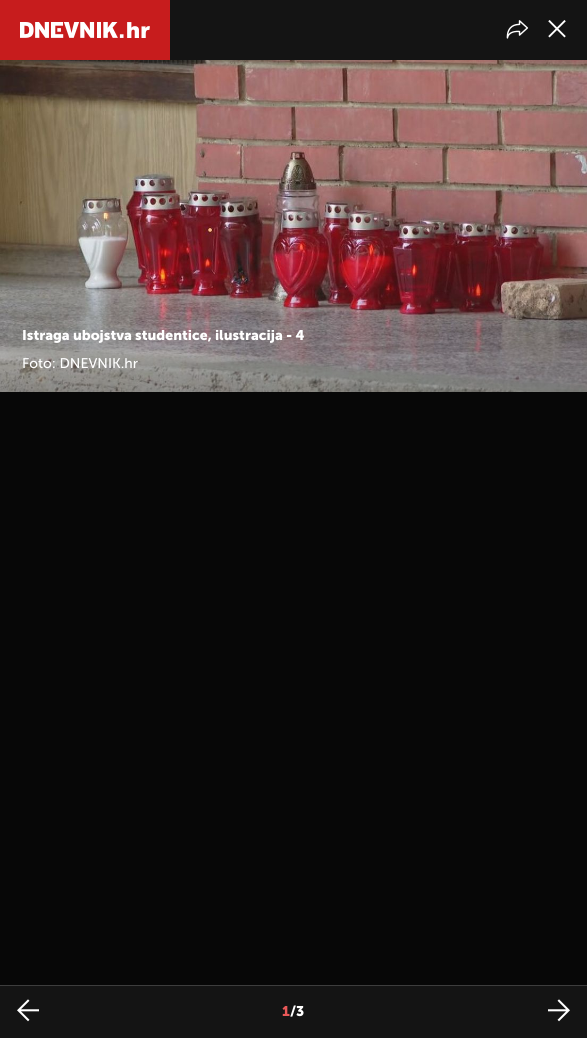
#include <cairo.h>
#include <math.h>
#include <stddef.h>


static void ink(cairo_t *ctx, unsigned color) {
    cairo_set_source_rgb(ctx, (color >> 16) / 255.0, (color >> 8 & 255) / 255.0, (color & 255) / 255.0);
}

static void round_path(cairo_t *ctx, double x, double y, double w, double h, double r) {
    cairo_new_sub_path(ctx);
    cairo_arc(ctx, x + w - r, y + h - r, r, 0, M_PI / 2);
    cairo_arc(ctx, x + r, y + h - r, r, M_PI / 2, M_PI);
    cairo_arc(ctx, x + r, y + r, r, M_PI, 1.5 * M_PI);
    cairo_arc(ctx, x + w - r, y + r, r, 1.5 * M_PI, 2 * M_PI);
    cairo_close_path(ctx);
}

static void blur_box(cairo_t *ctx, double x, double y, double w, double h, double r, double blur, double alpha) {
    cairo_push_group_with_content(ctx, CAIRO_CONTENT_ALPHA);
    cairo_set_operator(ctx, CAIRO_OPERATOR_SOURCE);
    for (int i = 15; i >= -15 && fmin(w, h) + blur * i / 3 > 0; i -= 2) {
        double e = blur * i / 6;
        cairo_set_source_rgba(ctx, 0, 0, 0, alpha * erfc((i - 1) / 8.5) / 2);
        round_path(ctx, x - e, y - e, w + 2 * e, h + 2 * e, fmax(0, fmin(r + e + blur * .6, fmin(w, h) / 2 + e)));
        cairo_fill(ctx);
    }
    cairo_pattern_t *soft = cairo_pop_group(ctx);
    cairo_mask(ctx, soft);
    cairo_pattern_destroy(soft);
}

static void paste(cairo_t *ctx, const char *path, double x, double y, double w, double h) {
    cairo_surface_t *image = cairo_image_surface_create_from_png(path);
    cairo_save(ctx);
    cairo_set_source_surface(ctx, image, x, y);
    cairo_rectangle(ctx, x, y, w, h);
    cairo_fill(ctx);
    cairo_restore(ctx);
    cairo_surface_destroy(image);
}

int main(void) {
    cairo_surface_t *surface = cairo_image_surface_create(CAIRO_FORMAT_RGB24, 587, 1038);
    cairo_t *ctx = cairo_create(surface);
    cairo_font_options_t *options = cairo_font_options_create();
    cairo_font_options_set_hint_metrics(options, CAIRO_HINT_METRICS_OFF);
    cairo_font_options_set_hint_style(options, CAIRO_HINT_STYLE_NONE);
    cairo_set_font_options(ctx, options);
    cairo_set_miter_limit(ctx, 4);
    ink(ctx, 0x070707);
    cairo_paint(ctx);
    paste(ctx, "media/4.png", 0, 60, 587, 332);
    ink(ctx, 0x000000);
    blur_box(ctx, 0, 4, 587, 60, 0, 2, 0.1);
    ink(ctx, 0x141414);
    cairo_rectangle(ctx, 170, 0, 417, 60);
    cairo_fill(ctx);
    ink(ctx, 0xC71C1D);
    cairo_rectangle(ctx, 0, 0, 170, 60);
    cairo_fill(ctx);
    paste(ctx, "media/1.png", 20, 22, 130, 16);
    paste(ctx, "media/2.png", 506, 20, 23, 19);
    paste(ctx, "media/3.png", 548, 20, 18, 18);
    cairo_select_font_face(ctx, "Museo Sans", CAIRO_FONT_SLANT_NORMAL, CAIRO_FONT_WEIGHT_NORMAL);
    cairo_set_font_size(ctx, 14);
    ink(ctx, 0xFFFFFF);
    cairo_move_to(ctx, 22, 340);
    cairo_show_text(ctx, "Istraga ubojstva studentice, ilustracija - 4");
    cairo_select_font_face(ctx, "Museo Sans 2", CAIRO_FONT_SLANT_NORMAL, CAIRO_FONT_WEIGHT_NORMAL);
    cairo_move_to(ctx, 22, 368);
    cairo_show_text(ctx, "Foto: DNEVNIK.hr");
    ink(ctx, 0x141414);
    cairo_rectangle(ctx, 0, 986, 587, 52);
    cairo_fill(ctx);
    ink(ctx, 0x3D3D3D);
    cairo_rectangle(ctx, 0, 985, 587, 1);
    cairo_fill(ctx);
    paste(ctx, "media/5.png", 17, 999, 22, 23);
    cairo_select_font_face(ctx, "Museo Sans", CAIRO_FONT_SLANT_NORMAL, CAIRO_FONT_WEIGHT_NORMAL);
    ink(ctx, 0xE95858);
    cairo_move_to(ctx, 282, 1016);
    cairo_show_text(ctx, "1");
    ink(ctx, 0xFFFFFF);
    cairo_move_to(ctx, 290, 1016);
    cairo_show_text(ctx, "/3");
    paste(ctx, "media/6.png", 548, 999, 22, 23);
    cairo_surface_write_to_png(surface, "image.png");
    cairo_font_options_destroy(options);
    cairo_destroy(ctx);
    cairo_surface_destroy(surface);
    return 0;
}
